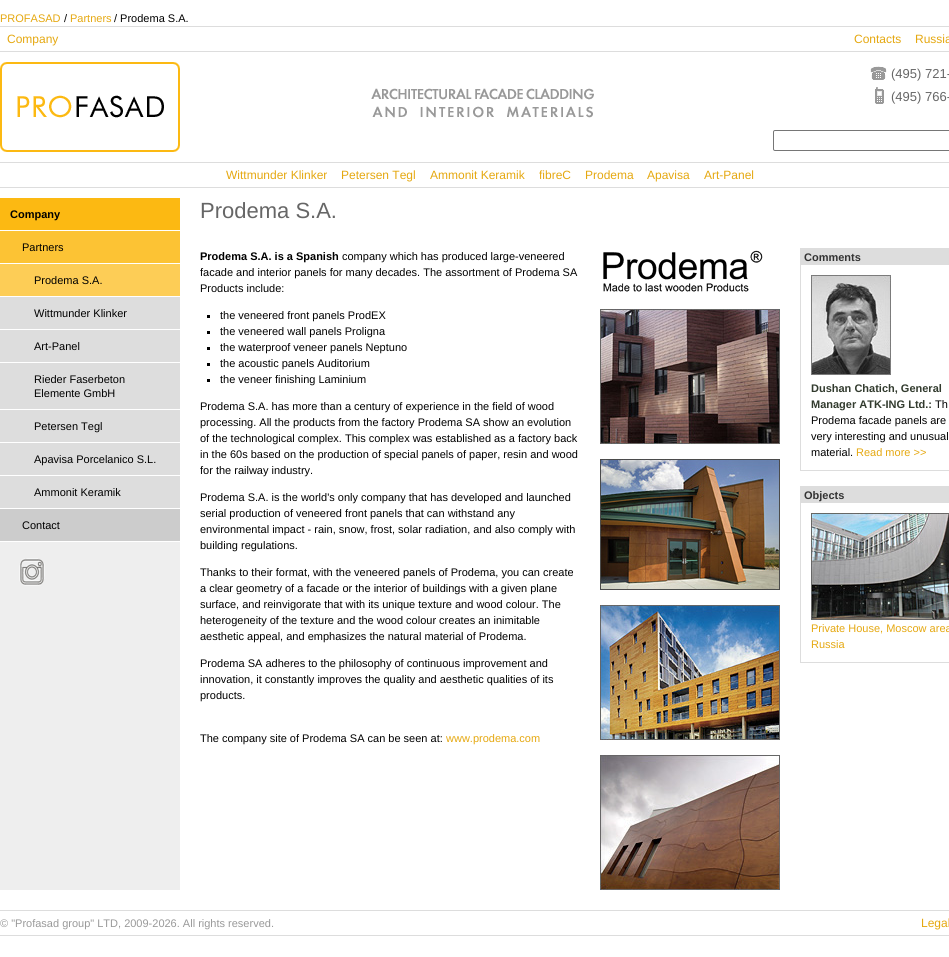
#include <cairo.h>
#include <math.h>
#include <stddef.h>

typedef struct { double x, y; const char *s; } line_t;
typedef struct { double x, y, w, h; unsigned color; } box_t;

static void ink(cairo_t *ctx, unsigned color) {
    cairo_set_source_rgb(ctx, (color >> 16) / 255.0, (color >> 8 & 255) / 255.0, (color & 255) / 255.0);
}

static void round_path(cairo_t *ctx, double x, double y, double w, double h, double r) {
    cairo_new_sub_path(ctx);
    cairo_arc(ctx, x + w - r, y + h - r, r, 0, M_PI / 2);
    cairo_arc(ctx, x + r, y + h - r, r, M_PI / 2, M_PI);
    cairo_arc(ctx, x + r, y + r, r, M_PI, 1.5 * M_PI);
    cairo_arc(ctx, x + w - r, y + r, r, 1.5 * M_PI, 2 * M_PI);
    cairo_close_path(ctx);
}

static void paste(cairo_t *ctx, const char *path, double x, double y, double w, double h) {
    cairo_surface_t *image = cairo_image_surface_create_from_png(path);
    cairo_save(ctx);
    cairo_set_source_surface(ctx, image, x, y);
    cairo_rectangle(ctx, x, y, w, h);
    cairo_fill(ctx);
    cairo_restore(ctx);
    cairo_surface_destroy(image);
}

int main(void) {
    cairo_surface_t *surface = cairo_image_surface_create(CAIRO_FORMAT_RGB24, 949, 957);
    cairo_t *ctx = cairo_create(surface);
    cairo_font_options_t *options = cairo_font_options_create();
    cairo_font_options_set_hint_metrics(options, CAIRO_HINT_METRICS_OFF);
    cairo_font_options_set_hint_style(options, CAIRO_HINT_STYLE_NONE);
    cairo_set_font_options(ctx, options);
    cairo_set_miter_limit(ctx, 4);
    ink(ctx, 0xFFFFFF);
    cairo_paint(ctx);
    cairo_select_font_face(ctx, "Liberation Sans", CAIRO_FONT_SLANT_NORMAL, CAIRO_FONT_WEIGHT_NORMAL);
    cairo_set_font_size(ctx, 11);
    ink(ctx, 0xE5A810);
    cairo_move_to(ctx, 0, 22);
    cairo_show_text(ctx, "PROFASAD");
    ink(ctx, 0x000000);
    cairo_move_to(ctx, 64, 22);
    cairo_show_text(ctx, "/");
    ink(ctx, 0xE5A810);
    cairo_move_to(ctx, 70, 22);
    cairo_show_text(ctx, "Partners");
    ink(ctx, 0x000000);
    cairo_move_to(ctx, 114, 22);
    cairo_show_text(ctx, "/ Prodema S.A.");
    ink(ctx, 0xDDDDDD);
    cairo_rectangle(ctx, 0, 26, 949, 1);
    cairo_fill(ctx);
    cairo_set_font_size(ctx, 12);
    ink(ctx, 0xE5A810);
    {
        static const line_t items[] = {
            {7, 43, "Company"},
            {854, 43, "Contacts"},
            {915, 43, "Russia"},
        };
        for (size_t i = 0; i < sizeof items / sizeof *items; i++) {
            cairo_move_to(ctx, items[i].x, items[i].y);
            cairo_show_text(ctx, items[i].s);
        }
    }
    ink(ctx, 0xDDDDDD);
    cairo_rectangle(ctx, 0, 51, 949, 1);
    cairo_fill(ctx);
    paste(ctx, "media/1.png", 0, 62, 180, 90);
    paste(ctx, "media/2.png", 371, 88, 223, 30);
    paste(ctx, "media/3.png", 870, 66, 17, 14);
    cairo_set_font_size(ctx, 13);
    ink(ctx, 0x666666);
    cairo_move_to(ctx, 891, 78);
    cairo_show_text(ctx, "(495) 721-");
    paste(ctx, "media/4.png", 875, 87, 9, 17);
    cairo_move_to(ctx, 891, 101);
    cairo_show_text(ctx, "(495) 766-");
    round_path(ctx, 773.5, 130.5, 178, 20, 1.5);
    ink(ctx, 0x767676);
    cairo_set_line_width(ctx, 1);
    cairo_stroke(ctx);
    ink(ctx, 0xDDDDDD);
    cairo_rectangle(ctx, 0, 162, 949, 1);
    cairo_fill(ctx);
    cairo_set_font_size(ctx, 12);
    ink(ctx, 0xE5A810);
    {
        static const line_t items[] = {
            {226, 179, "Wittmunder Klinker"},
            {341, 179, "Petersen Tegl"},
            {430, 179, "Ammonit Keramik"},
            {539, 179, "fibreC"},
            {585, 179, "Prodema"},
            {647, 179, "Apavisa"},
            {704, 179, "Art-Panel"},
        };
        for (size_t i = 0; i < sizeof items / sizeof *items; i++) {
            cairo_move_to(ctx, items[i].x, items[i].y);
            cairo_show_text(ctx, items[i].s);
        }
    }
    {
        static const box_t items[] = {
            {0, 187, 949, 1, 0xDDDDDD},
            {0, 542, 180, 348, 0xEEEEEE},
            {0, 198, 180, 32, 0xFCB912},
        };
        for (size_t i = 0; i < sizeof items / sizeof *items; i++) {
            ink(ctx, items[i].color);
            cairo_rectangle(ctx, items[i].x, items[i].y, items[i].w, items[i].h);
            cairo_fill(ctx);
        }
    }
    cairo_select_font_face(ctx, "Liberation Sans", CAIRO_FONT_SLANT_NORMAL, CAIRO_FONT_WEIGHT_BOLD);
    cairo_set_font_size(ctx, 11);
    ink(ctx, 0x000000);
    cairo_move_to(ctx, 10, 218);
    cairo_show_text(ctx, "Company");
    ink(ctx, 0xFCC334);
    cairo_rectangle(ctx, 0, 231, 180, 32);
    cairo_fill(ctx);
    cairo_select_font_face(ctx, "Liberation Sans", CAIRO_FONT_SLANT_NORMAL, CAIRO_FONT_WEIGHT_NORMAL);
    ink(ctx, 0x000000);
    cairo_move_to(ctx, 22, 251);
    cairo_show_text(ctx, "Partners");
    ink(ctx, 0xFDCD56);
    cairo_rectangle(ctx, 0, 264, 180, 32);
    cairo_fill(ctx);
    ink(ctx, 0x000000);
    cairo_move_to(ctx, 34, 284);
    cairo_show_text(ctx, "Prodema S.A.");
    ink(ctx, 0xDDDDDD);
    cairo_rectangle(ctx, 0, 297, 180, 32);
    cairo_fill(ctx);
    ink(ctx, 0x000000);
    cairo_move_to(ctx, 34, 317);
    cairo_show_text(ctx, "Wittmunder Klinker");
    ink(ctx, 0xDDDDDD);
    cairo_rectangle(ctx, 0, 330, 180, 32);
    cairo_fill(ctx);
    ink(ctx, 0x000000);
    cairo_move_to(ctx, 34, 350);
    cairo_show_text(ctx, "Art-Panel");
    ink(ctx, 0xDDDDDD);
    cairo_rectangle(ctx, 0, 363, 180, 46);
    cairo_fill(ctx);
    ink(ctx, 0x000000);
    cairo_move_to(ctx, 34, 383);
    cairo_show_text(ctx, "Rieder Faserbeton");
    cairo_move_to(ctx, 34, 397);
    cairo_show_text(ctx, "Elemente GmbH");
    ink(ctx, 0xDDDDDD);
    cairo_rectangle(ctx, 0, 410, 180, 32);
    cairo_fill(ctx);
    ink(ctx, 0x000000);
    cairo_move_to(ctx, 34, 430);
    cairo_show_text(ctx, "Petersen Tegl");
    ink(ctx, 0xDDDDDD);
    cairo_rectangle(ctx, 0, 443, 180, 32);
    cairo_fill(ctx);
    ink(ctx, 0x000000);
    cairo_move_to(ctx, 34, 463);
    cairo_show_text(ctx, "Apavisa Porcelanico S.L.");
    ink(ctx, 0xDDDDDD);
    cairo_rectangle(ctx, 0, 476, 180, 32);
    cairo_fill(ctx);
    ink(ctx, 0x000000);
    cairo_move_to(ctx, 34, 496);
    cairo_show_text(ctx, "Ammonit Keramik");
    ink(ctx, 0xCCCCCC);
    cairo_rectangle(ctx, 0, 509, 180, 32);
    cairo_fill(ctx);
    ink(ctx, 0x000000);
    cairo_move_to(ctx, 22, 529);
    cairo_show_text(ctx, "Contact");
    paste(ctx, "media/5.png", 19, 558, 26, 28);
    cairo_set_font_size(ctx, 22);
    ink(ctx, 0x666666);
    cairo_move_to(ctx, 200, 218);
    cairo_show_text(ctx, "Prodema S.A.");
    cairo_select_font_face(ctx, "Liberation Sans", CAIRO_FONT_SLANT_NORMAL, CAIRO_FONT_WEIGHT_BOLD);
    cairo_set_font_size(ctx, 11);
    ink(ctx, 0x000000);
    cairo_move_to(ctx, 200, 260);
    cairo_show_text(ctx, "Prodema S.A. is a Spanish");
    cairo_select_font_face(ctx, "Liberation Sans", CAIRO_FONT_SLANT_NORMAL, CAIRO_FONT_WEIGHT_NORMAL);
    {
        static const line_t items[] = {
            {342, 260, "company which has produced large-veneered"},
            {200, 276, "facade and interior panels for many decades. The assortment of Prodema SA"},
            {200, 292, "Products include:"},
        };
        for (size_t i = 0; i < sizeof items / sizeof *items; i++) {
            cairo_move_to(ctx, items[i].x, items[i].y);
            cairo_show_text(ctx, items[i].s);
        }
    }
    cairo_rectangle(ctx, 207, 315, 3, 3);
    cairo_fill(ctx);
    cairo_move_to(ctx, 220, 319);
    cairo_show_text(ctx, "the veneered front panels ProdEX");
    cairo_rectangle(ctx, 207, 331, 3, 3);
    cairo_fill(ctx);
    cairo_move_to(ctx, 220, 335);
    cairo_show_text(ctx, "the veneered wall panels Proligna");
    cairo_rectangle(ctx, 207, 347, 3, 3);
    cairo_fill(ctx);
    cairo_move_to(ctx, 220, 351);
    cairo_show_text(ctx, "the waterproof veneer panels Neptuno");
    cairo_rectangle(ctx, 207, 363, 3, 3);
    cairo_fill(ctx);
    cairo_move_to(ctx, 220, 367);
    cairo_show_text(ctx, "the acoustic panels Auditorium");
    cairo_rectangle(ctx, 207, 379, 3, 3);
    cairo_fill(ctx);
    {
        static const line_t items[] = {
            {220, 383, "the veneer finishing Laminium"},
            {200, 410, "Prodema S.A. has more than a century of experience in the field of wood"},
            {200, 426, "processing. All the products from the factory Prodema SA show an evolution"},
            {200, 442, "of the technological complex. This complex was established as a factory back"},
            {200, 458, "in the 60s based on the production of special panels of paper, resin and wood"},
            {200, 474, "for the railway industry."},
            {200, 501, "Prodema S.A. is the world's only company that has developed and launched"},
            {200, 517, "serial production of veneered front panels that can withstand any"},
            {200, 533, "environmental impact - rain, snow, frost, solar radiation, and also comply with"},
            {200, 549, "building regulations."},
            {200, 576, "Thanks to their format, with the veneered panels of Prodema, you can create"},
            {200, 592, "a clear geometry of a facade or the interior of buildings with a given plane"},
            {200, 608, "surface, and reinvigorate that with its unique texture and wood colour. The"},
            {200, 624, "heterogeneity of the texture and the wood colour creates an inimitable"},
            {200, 640, "aesthetic appeal, and emphasizes the natural material of Prodema."},
            {200, 667, "Prodema SA adheres to the philosophy of continuous improvement and"},
            {200, 683, "innovation, it constantly improves the quality and aesthetic qualities of its"},
            {200, 699, "products."},
            {200, 742, "The company site of Prodema SA can be seen at:"},
        };
        for (size_t i = 0; i < sizeof items / sizeof *items; i++) {
            cairo_move_to(ctx, items[i].x, items[i].y);
            cairo_show_text(ctx, items[i].s);
        }
    }
    ink(ctx, 0xE5A810);
    cairo_move_to(ctx, 446, 742);
    cairo_show_text(ctx, "www.prodema.com");
    paste(ctx, "media/6.png", 603, 250, 160, 42);
    paste(ctx, "media/7.png", 600, 309, 180, 135);
    paste(ctx, "media/8.png", 600, 459, 180, 131);
    paste(ctx, "media/9.png", 600, 605, 180, 135);
    paste(ctx, "media/10.png", 600, 755, 180, 135);
    ink(ctx, 0xDDDDDD);
    cairo_rectangle(ctx, 800, 248, 149, 223);
    cairo_fill(ctx);
    cairo_select_font_face(ctx, "Liberation Sans", CAIRO_FONT_SLANT_NORMAL, CAIRO_FONT_WEIGHT_BOLD);
    ink(ctx, 0x333333);
    cairo_move_to(ctx, 804, 261);
    cairo_show_text(ctx, "Comments");
    ink(ctx, 0xFFFFFF);
    cairo_rectangle(ctx, 801, 265, 148, 205);
    cairo_fill(ctx);
    paste(ctx, "media/11.png", 811, 275, 80, 100);
    ink(ctx, 0x323B2E);
    cairo_move_to(ctx, 811, 392);
    cairo_show_text(ctx, "Dushan Chatich, General");
    cairo_move_to(ctx, 811, 408);
    cairo_show_text(ctx, "Manager ATK-ING Ltd.:");
    cairo_select_font_face(ctx, "Liberation Sans", CAIRO_FONT_SLANT_NORMAL, CAIRO_FONT_WEIGHT_NORMAL);
    ink(ctx, 0x000000);
    {
        static const line_t items[] = {
            {935, 408, "Th"},
            {811, 424, "Prodema facade panels are"},
            {811, 440, "very interesting and unusual"},
            {811, 456, "material."},
        };
        for (size_t i = 0; i < sizeof items / sizeof *items; i++) {
            cairo_move_to(ctx, items[i].x, items[i].y);
            cairo_show_text(ctx, items[i].s);
        }
    }
    ink(ctx, 0xE5A810);
    cairo_move_to(ctx, 856, 456);
    cairo_show_text(ctx, "Read more >>");
    ink(ctx, 0xDDDDDD);
    cairo_rectangle(ctx, 800, 486, 149, 177);
    cairo_fill(ctx);
    cairo_select_font_face(ctx, "Liberation Sans", CAIRO_FONT_SLANT_NORMAL, CAIRO_FONT_WEIGHT_BOLD);
    ink(ctx, 0x333333);
    cairo_move_to(ctx, 804, 499);
    cairo_show_text(ctx, "Objects");
    ink(ctx, 0xFFFFFF);
    cairo_rectangle(ctx, 801, 503, 148, 159);
    cairo_fill(ctx);
    paste(ctx, "media/12.png", 811, 513, 138, 107);
    cairo_select_font_face(ctx, "Liberation Sans", CAIRO_FONT_SLANT_NORMAL, CAIRO_FONT_WEIGHT_NORMAL);
    ink(ctx, 0xE5A810);
    cairo_move_to(ctx, 811, 632);
    cairo_show_text(ctx, "Private House, Moscow area");
    cairo_move_to(ctx, 811, 648);
    cairo_show_text(ctx, "Russia");
    ink(ctx, 0xDDDDDD);
    cairo_rectangle(ctx, 0, 910, 949, 1);
    cairo_fill(ctx);
    ink(ctx, 0x999999);
    cairo_move_to(ctx, 0, 927);
    cairo_show_text(ctx, "© \"Profasad group\" LTD, 2009-2026. All rights reserved.");
    cairo_set_font_size(ctx, 12);
    ink(ctx, 0xE5A810);
    cairo_move_to(ctx, 921, 927);
    cairo_show_text(ctx, "Legal");
    ink(ctx, 0xDDDDDD);
    cairo_rectangle(ctx, 0, 935, 949, 1);
    cairo_fill(ctx);
    cairo_surface_write_to_png(surface, "image.png");
    cairo_font_options_destroy(options);
    cairo_destroy(ctx);
    cairo_surface_destroy(surface);
    return 0;
}
